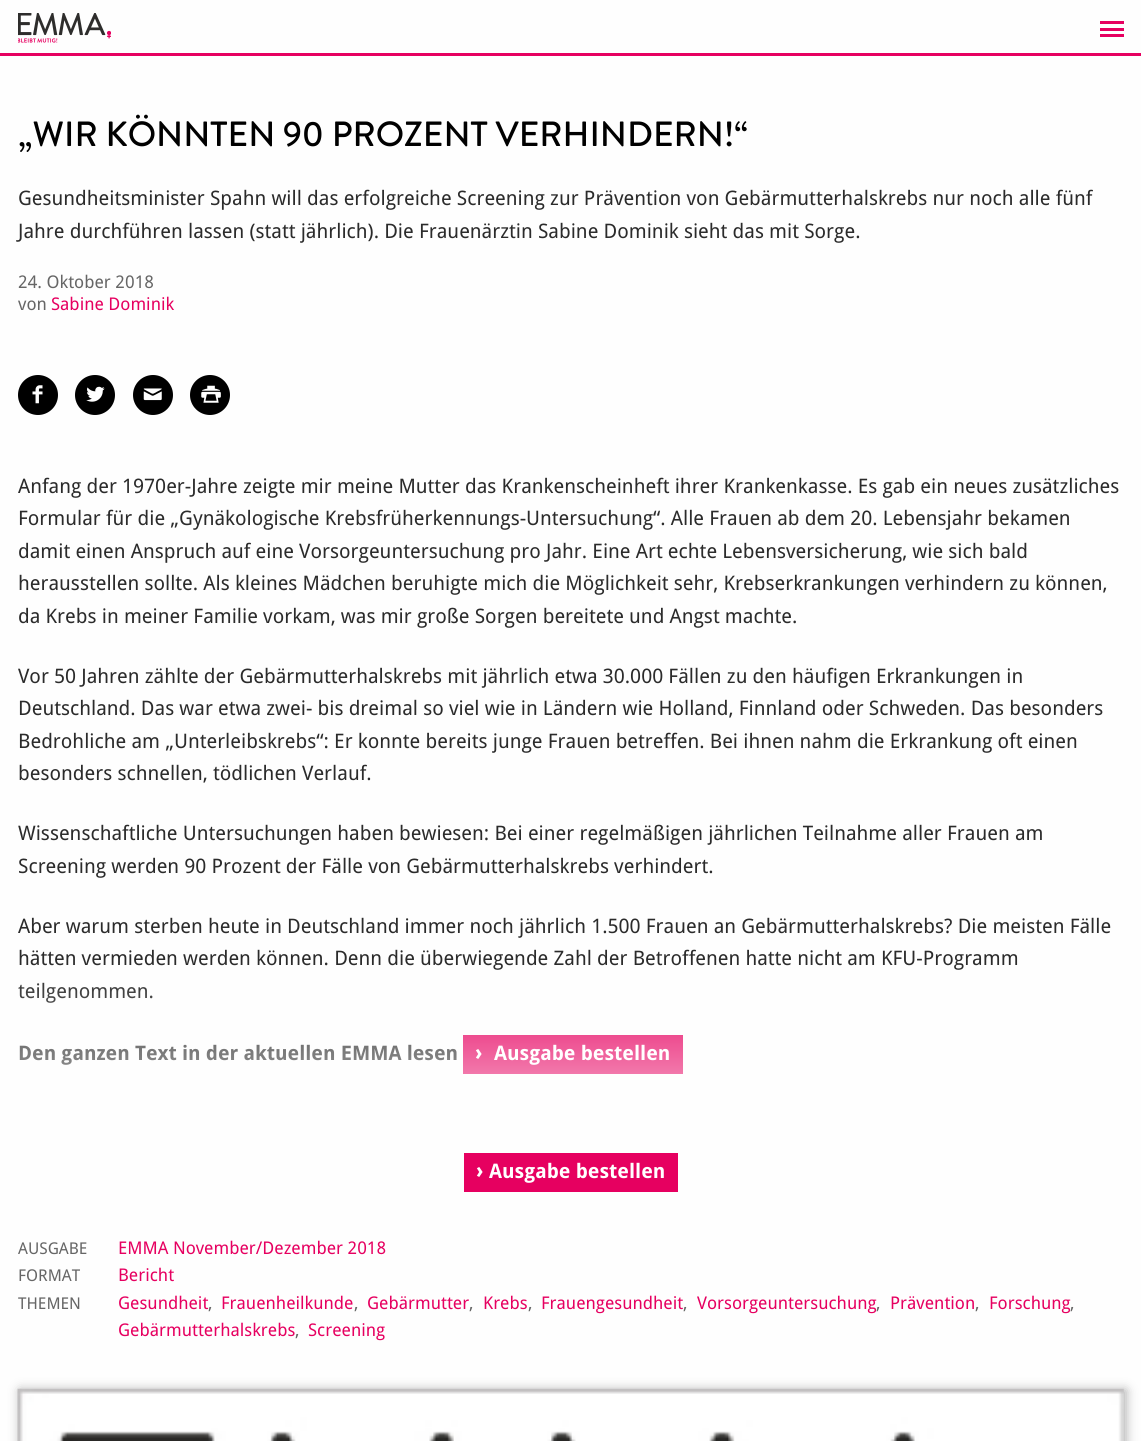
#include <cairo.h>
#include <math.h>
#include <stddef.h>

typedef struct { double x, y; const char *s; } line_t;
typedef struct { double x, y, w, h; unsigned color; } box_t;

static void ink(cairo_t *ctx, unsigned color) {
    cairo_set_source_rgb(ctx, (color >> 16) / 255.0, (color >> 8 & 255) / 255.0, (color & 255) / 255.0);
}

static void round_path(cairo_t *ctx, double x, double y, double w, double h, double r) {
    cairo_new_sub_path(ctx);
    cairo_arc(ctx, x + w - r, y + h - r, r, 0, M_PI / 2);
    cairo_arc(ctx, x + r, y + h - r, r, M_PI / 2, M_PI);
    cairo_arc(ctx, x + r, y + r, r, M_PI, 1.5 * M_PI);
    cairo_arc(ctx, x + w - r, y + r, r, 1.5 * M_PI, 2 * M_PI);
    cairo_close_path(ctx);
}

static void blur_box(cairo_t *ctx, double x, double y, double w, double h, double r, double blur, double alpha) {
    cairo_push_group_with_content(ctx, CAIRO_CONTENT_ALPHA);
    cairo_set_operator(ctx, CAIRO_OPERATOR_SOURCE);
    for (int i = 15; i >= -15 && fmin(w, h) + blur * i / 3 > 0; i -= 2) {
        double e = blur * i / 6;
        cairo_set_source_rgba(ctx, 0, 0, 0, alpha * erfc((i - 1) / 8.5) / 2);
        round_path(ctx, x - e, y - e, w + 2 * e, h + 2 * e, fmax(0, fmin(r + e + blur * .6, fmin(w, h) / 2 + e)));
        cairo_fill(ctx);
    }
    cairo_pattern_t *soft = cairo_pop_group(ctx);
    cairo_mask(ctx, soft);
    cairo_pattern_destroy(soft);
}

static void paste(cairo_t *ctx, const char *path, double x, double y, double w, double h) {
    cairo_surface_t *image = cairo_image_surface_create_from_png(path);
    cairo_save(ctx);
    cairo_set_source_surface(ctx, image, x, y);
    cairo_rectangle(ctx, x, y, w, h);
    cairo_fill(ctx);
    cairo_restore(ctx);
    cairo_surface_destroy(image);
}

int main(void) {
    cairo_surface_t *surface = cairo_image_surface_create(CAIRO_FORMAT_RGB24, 1141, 1441);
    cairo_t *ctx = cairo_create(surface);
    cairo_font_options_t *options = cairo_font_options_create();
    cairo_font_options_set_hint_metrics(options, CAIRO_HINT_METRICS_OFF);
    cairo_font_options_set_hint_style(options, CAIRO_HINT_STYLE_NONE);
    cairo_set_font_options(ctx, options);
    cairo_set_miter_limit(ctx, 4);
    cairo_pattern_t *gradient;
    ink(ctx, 0xFEFEFE);
    cairo_paint(ctx);
    ink(ctx, 0xE60060);
    cairo_rectangle(ctx, 0, 53, 1141, 3);
    cairo_fill(ctx);
    paste(ctx, "media/1.png", 18, 13, 93, 30);
    {
        static const box_t items[] = {
            {1100, 28, 24, 3, 0xE60060},
            {1100, 21, 24, 3, 0xE60060},
            {1100, 34, 24, 3, 0xE60060},
        };
        for (size_t i = 0; i < sizeof items / sizeof *items; i++) {
            ink(ctx, items[i].color);
            cairo_rectangle(ctx, items[i].x, items[i].y, items[i].w, items[i].h);
            cairo_fill(ctx);
        }
    }
    cairo_select_font_face(ctx, "Brandon Grotesque Medium", CAIRO_FONT_SLANT_NORMAL, CAIRO_FONT_WEIGHT_NORMAL);
    cairo_set_font_size(ctx, 35);
    ink(ctx, 0x000000);
    cairo_move_to(ctx, 18, 146);
    cairo_show_text(ctx, "„WIR KÖNNTEN 90 PROZENT VERHINDERN!“");
    cairo_select_font_face(ctx, "Droid Sans", CAIRO_FONT_SLANT_NORMAL, CAIRO_FONT_WEIGHT_NORMAL);
    cairo_set_font_size(ctx, 20);
    ink(ctx, 0x2B2B2B);
    cairo_move_to(ctx, 18, 205);
    cairo_show_text(ctx, "Gesundheitsminister Spahn will das erfolgreiche Screening zur Prävention von Gebärmutterhalskrebs nur noch alle fünf");
    cairo_move_to(ctx, 18, 238);
    cairo_show_text(ctx, "Jahre durchführen lassen (statt jährlich). Die Frauenärztin Sabine Dominik sieht das mit Sorge.");
    cairo_set_font_size(ctx, 17.5);
    ink(ctx, 0x666666);
    cairo_move_to(ctx, 18, 288);
    cairo_show_text(ctx, "24. Oktober 2018");
    cairo_move_to(ctx, 18, 310);
    cairo_show_text(ctx, "von");
    ink(ctx, 0xE60060);
    cairo_move_to(ctx, 51, 310);
    cairo_show_text(ctx, "Sabine Dominik");
    ink(ctx, 0x000000);
    cairo_new_path(ctx);
    cairo_arc(ctx, 38, 395, 20, 0, 2 * M_PI);
    cairo_fill(ctx);
    paste(ctx, "media/2.png", 32, 385, 11, 19);
    cairo_arc(ctx, 95, 395, 20, 0, 2 * M_PI);
    cairo_fill(ctx);
    paste(ctx, "media/3.png", 86, 386, 19, 16);
    cairo_arc(ctx, 153, 395, 20, 0, 2 * M_PI);
    cairo_fill(ctx);
    paste(ctx, "media/4.png", 143, 388, 19, 13);
    cairo_arc(ctx, 210, 395, 20, 0, 2 * M_PI);
    cairo_fill(ctx);
    paste(ctx, "media/5.png", 201, 385, 20, 18);
    cairo_set_font_size(ctx, 20);
    ink(ctx, 0x2B2B2B);
    {
        static const line_t items[] = {
            {18, 493, "Anfang der 1970er-Jahre zeigte mir meine Mutter das Krankenscheinheft ihrer Krankenkasse. Es gab ein neues zusätzliches"},
            {18, 525, "Formular für die „Gynäkologische Krebsfrüherkennungs-Untersuchung“. Alle Frauen ab dem 20. Lebensjahr bekamen"},
            {18, 558, "damit einen Anspruch auf eine Vorsorgeuntersuchung pro Jahr. Eine Art echte Lebensversicherung, wie sich bald"},
            {18, 590, "herausstellen sollte. Als kleines Mädchen beruhigte mich die Möglichkeit sehr, Krebserkrankungen verhindern zu können,"},
            {18, 623, "da Krebs in meiner Familie vorkam, was mir große Sorgen bereitete und Angst machte."},
            {18, 683, "Vor 50 Jahren zählte der Gebärmutterhalskrebs mit jährlich etwa 30.000 Fällen zu den häufigen Erkrankungen in"},
            {18, 715, "Deutschland. Das war etwa zwei- bis dreimal so viel wie in Ländern wie Holland, Finnland oder Schweden. Das besonders"},
            {18, 748, "Bedrohliche am „Unterleibskrebs“: Er konnte bereits junge Frauen betreffen. Bei ihnen nahm die Erkrankung oft einen"},
            {18, 780, "besonders schnellen, tödlichen Verlauf."},
            {18, 840, "Wissenschaftliche Untersuchungen haben bewiesen: Bei einer regelmäßigen jährlichen Teilnahme aller Frauen am"},
            {18, 873, "Screening werden 90 Prozent der Fälle von Gebärmutterhalskrebs verhindert."},
            {18, 933, "Aber warum sterben heute in Deutschland immer noch jährlich 1.500 Frauen an Gebärmutterhalskrebs? Die meisten Fälle"},
            {18, 965, "hätten vermieden werden können. Denn die überwiegende Zahl der Betroffenen hatte nicht am KFU-Programm"},
            {18, 998, "teilgenommen."},
        };
        for (size_t i = 0; i < sizeof items / sizeof *items; i++) {
            cairo_move_to(ctx, items[i].x, items[i].y);
            cairo_show_text(ctx, items[i].s);
        }
    }
    cairo_select_font_face(ctx, "Droid Sans", CAIRO_FONT_SLANT_NORMAL, CAIRO_FONT_WEIGHT_BOLD);
    cairo_move_to(ctx, 18, 1060);
    cairo_show_text(ctx, "Den ganzen Text in der aktuellen EMMA lesen");
    ink(ctx, 0xE60060);
    cairo_rectangle(ctx, 463, 1035, 220, 39);
    cairo_fill(ctx);
    cairo_set_font_size(ctx, 22);
    ink(ctx, 0xFFFFFF);
    cairo_move_to(ctx, 475, 1060);
    cairo_show_text(ctx, "›");
    cairo_set_font_size(ctx, 20);
    cairo_move_to(ctx, 494, 1060);
    cairo_show_text(ctx, "Ausgabe bestellen");
    gradient = cairo_pattern_create_linear(571, 968, 571, 1193);
    cairo_pattern_add_color_stop_rgba(gradient, 0, 1, 1, 1, 0);
    cairo_pattern_add_color_stop_rgba(gradient, 1, 1, 1, 1, 1);
    cairo_set_source(ctx, gradient);
    cairo_pattern_destroy(gradient);
    cairo_rectangle(ctx, 18, 982, 665, 92);
    cairo_fill(ctx);
    ink(ctx, 0xE60060);
    cairo_rectangle(ctx, 464, 1153, 214, 39);
    cairo_fill(ctx);
    cairo_set_font_size(ctx, 22);
    ink(ctx, 0xFFFFFF);
    cairo_move_to(ctx, 476, 1178);
    cairo_show_text(ctx, "›");
    cairo_set_font_size(ctx, 20);
    cairo_move_to(ctx, 489, 1178);
    cairo_show_text(ctx, "Ausgabe bestellen");
    cairo_select_font_face(ctx, "Droid Sans", CAIRO_FONT_SLANT_NORMAL, CAIRO_FONT_WEIGHT_NORMAL);
    cairo_set_font_size(ctx, 16.25);
    ink(ctx, 0x666666);
    cairo_move_to(ctx, 18, 1254);
    cairo_show_text(ctx, "AUSGABE");
    cairo_set_font_size(ctx, 17.5);
    ink(ctx, 0xE60060);
    cairo_move_to(ctx, 118, 1254);
    cairo_show_text(ctx, "EMMA November/Dezember 2018");
    cairo_set_font_size(ctx, 16.25);
    ink(ctx, 0x666666);
    cairo_move_to(ctx, 18, 1281);
    cairo_show_text(ctx, "FORMAT");
    cairo_set_font_size(ctx, 17.5);
    ink(ctx, 0xE60060);
    cairo_move_to(ctx, 118, 1281);
    cairo_show_text(ctx, "Bericht");
    cairo_set_font_size(ctx, 16.25);
    ink(ctx, 0x666666);
    cairo_move_to(ctx, 18, 1309);
    cairo_show_text(ctx, "THEMEN");
    cairo_set_font_size(ctx, 17.5);
    ink(ctx, 0xE60060);
    cairo_move_to(ctx, 118, 1309);
    cairo_show_text(ctx, "Gesundheit");
    ink(ctx, 0x666666);
    cairo_move_to(ctx, 208, 1309);
    cairo_show_text(ctx, ",");
    ink(ctx, 0xE60060);
    cairo_move_to(ctx, 221, 1309);
    cairo_show_text(ctx, "Frauenheilkunde");
    ink(ctx, 0x666666);
    cairo_move_to(ctx, 354, 1309);
    cairo_show_text(ctx, ",");
    ink(ctx, 0xE60060);
    cairo_move_to(ctx, 367, 1309);
    cairo_show_text(ctx, "Gebärmutter");
    ink(ctx, 0x666666);
    cairo_move_to(ctx, 469, 1309);
    cairo_show_text(ctx, ",");
    ink(ctx, 0xE60060);
    cairo_move_to(ctx, 483, 1309);
    cairo_show_text(ctx, "Krebs");
    ink(ctx, 0x666666);
    cairo_move_to(ctx, 528, 1309);
    cairo_show_text(ctx, ",");
    ink(ctx, 0xE60060);
    cairo_move_to(ctx, 541, 1309);
    cairo_show_text(ctx, "Frauengesundheit");
    ink(ctx, 0x666666);
    cairo_move_to(ctx, 683, 1309);
    cairo_show_text(ctx, ",");
    ink(ctx, 0xE60060);
    cairo_move_to(ctx, 697, 1309);
    cairo_show_text(ctx, "Vorsorgeuntersuchung");
    ink(ctx, 0x666666);
    cairo_move_to(ctx, 876, 1309);
    cairo_show_text(ctx, ",");
    ink(ctx, 0xE60060);
    cairo_move_to(ctx, 890, 1309);
    cairo_show_text(ctx, "Prävention");
    ink(ctx, 0x666666);
    cairo_move_to(ctx, 975, 1309);
    cairo_show_text(ctx, ",");
    ink(ctx, 0xE60060);
    cairo_move_to(ctx, 989, 1309);
    cairo_show_text(ctx, "Forschung");
    ink(ctx, 0x666666);
    cairo_move_to(ctx, 1070, 1309);
    cairo_show_text(ctx, ",");
    ink(ctx, 0xE60060);
    cairo_move_to(ctx, 118, 1336);
    cairo_show_text(ctx, "Gebärmutterhalskrebs");
    ink(ctx, 0x666666);
    cairo_move_to(ctx, 295, 1336);
    cairo_show_text(ctx, ",");
    ink(ctx, 0xE60060);
    cairo_move_to(ctx, 308, 1336);
    cairo_show_text(ctx, "Screening");
    ink(ctx, 0xAEAEAE);
    blur_box(ctx, 20, 1390, 1106, 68, 0, 5.5, 1);
    paste(ctx, "media/6.png", 17, 1388, 1107, 53);
    cairo_surface_write_to_png(surface, "image.png");
    cairo_font_options_destroy(options);
    cairo_destroy(ctx);
    cairo_surface_destroy(surface);
    return 0;
}
